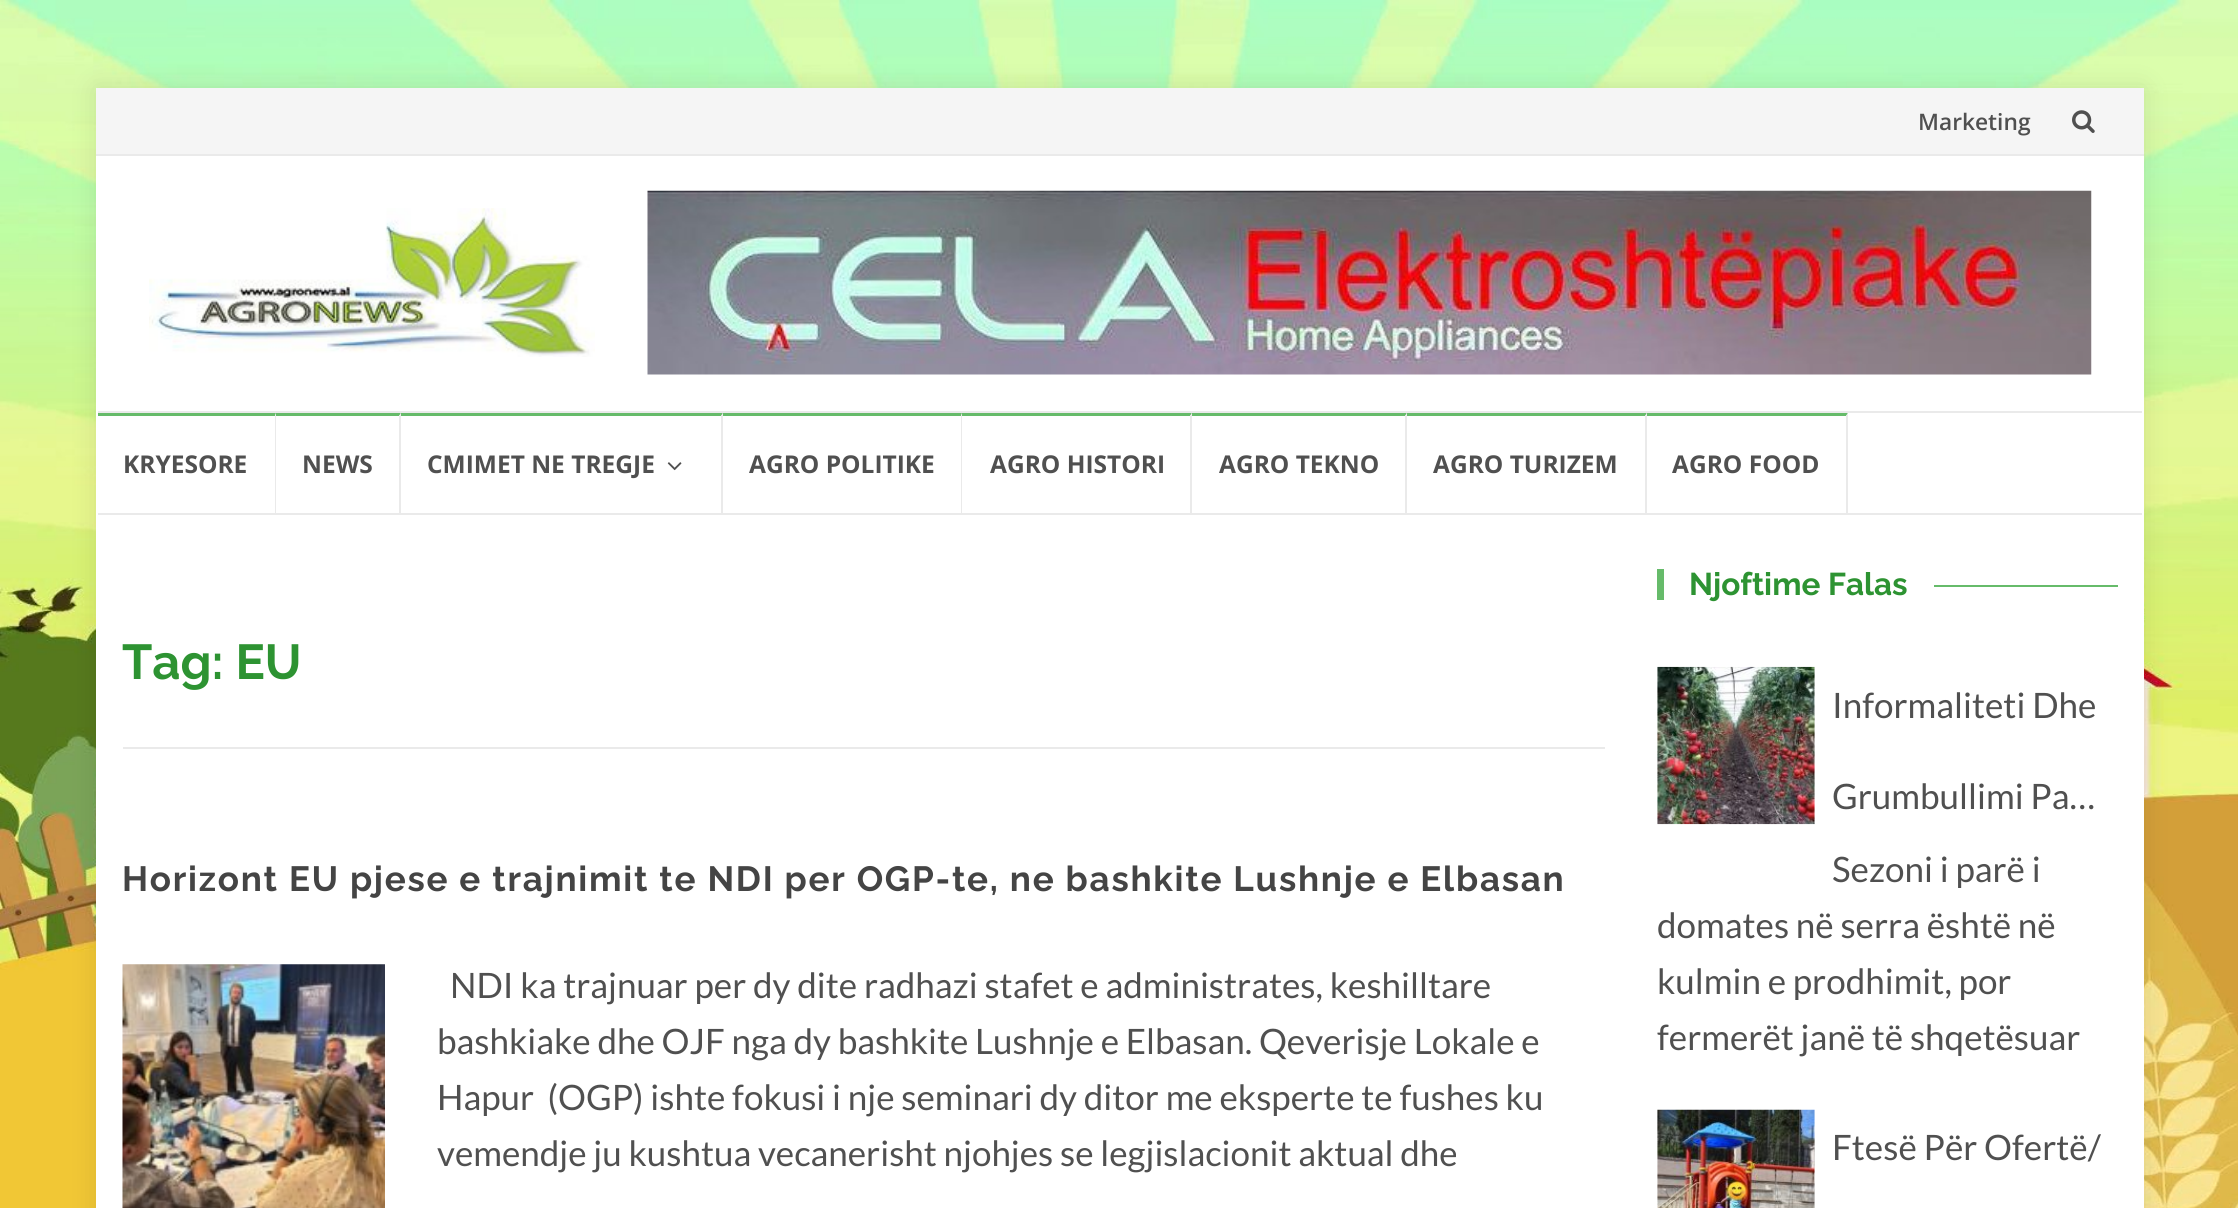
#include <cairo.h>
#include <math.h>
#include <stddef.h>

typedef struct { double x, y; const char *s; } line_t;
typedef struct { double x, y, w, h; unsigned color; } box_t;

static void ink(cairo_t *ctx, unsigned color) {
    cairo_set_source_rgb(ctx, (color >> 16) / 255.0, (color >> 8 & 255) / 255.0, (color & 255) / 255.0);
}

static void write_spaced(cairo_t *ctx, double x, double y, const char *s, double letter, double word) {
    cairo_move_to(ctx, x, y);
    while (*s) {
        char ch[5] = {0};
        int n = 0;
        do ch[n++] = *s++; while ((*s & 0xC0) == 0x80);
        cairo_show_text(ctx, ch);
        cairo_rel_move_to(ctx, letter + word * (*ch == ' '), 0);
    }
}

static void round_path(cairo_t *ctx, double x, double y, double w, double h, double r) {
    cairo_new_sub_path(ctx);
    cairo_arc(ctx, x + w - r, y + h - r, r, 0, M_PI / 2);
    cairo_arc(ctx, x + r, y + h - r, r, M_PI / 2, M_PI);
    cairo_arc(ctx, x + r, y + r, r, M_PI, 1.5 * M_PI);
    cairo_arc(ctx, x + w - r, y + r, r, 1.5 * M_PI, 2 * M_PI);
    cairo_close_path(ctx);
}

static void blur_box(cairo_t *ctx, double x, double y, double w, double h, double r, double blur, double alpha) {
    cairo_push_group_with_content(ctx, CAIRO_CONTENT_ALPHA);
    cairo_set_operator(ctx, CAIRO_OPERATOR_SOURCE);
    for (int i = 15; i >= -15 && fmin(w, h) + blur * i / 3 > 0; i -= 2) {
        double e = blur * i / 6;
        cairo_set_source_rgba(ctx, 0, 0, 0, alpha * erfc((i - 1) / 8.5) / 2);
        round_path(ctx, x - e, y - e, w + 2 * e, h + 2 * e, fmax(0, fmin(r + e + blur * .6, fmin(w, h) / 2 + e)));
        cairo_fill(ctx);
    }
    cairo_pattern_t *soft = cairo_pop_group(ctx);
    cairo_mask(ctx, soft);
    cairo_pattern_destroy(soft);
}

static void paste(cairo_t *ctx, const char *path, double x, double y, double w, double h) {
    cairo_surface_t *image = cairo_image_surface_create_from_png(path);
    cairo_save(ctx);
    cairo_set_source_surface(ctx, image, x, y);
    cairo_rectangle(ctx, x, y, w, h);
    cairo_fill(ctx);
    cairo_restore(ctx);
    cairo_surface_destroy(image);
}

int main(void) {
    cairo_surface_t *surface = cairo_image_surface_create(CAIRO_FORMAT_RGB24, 2238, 1208);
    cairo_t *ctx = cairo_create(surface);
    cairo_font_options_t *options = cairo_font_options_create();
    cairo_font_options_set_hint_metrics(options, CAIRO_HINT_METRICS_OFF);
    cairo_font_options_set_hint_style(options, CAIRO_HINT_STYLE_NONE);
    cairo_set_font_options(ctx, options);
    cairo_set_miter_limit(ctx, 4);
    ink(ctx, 0xFFFFFF);
    cairo_paint(ctx);
    paste(ctx, "media/1.png", 0, 0, 2238, 1208);
    ink(ctx, 0x000000);
    blur_box(ctx, 96, 88, 2048, 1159, 0, 13, 0.1);
    {
        static const box_t items[] = {
            {96, 156, 2048, 1052, 0xFFFFFF},
            {96, 88, 2048, 66, 0xF5F5F5},
            {96, 154, 2048, 2, 0xEAEAEA},
        };
        for (size_t i = 0; i < sizeof items / sizeof *items; i++) {
            ink(ctx, items[i].color);
            cairo_rectangle(ctx, items[i].x, items[i].y, items[i].w, items[i].h);
            cairo_fill(ctx);
        }
    }
    cairo_select_font_face(ctx, "Open Sans SemiBold", CAIRO_FONT_SLANT_NORMAL, CAIRO_FONT_WEIGHT_NORMAL);
    cairo_set_font_size(ctx, 22.75);
    ink(ctx, 0x505050);
    cairo_move_to(ctx, 1918, 130);
    cairo_show_text(ctx, "Marketing");
    paste(ctx, "media/2.png", 2072, 110, 23, 23);
    paste(ctx, "media/3.png", 149, 208, 446, 149);
    paste(ctx, "media/4.png", 647, 190, 1445, 185);
    ink(ctx, 0xEAEAEA);
    cairo_rectangle(ctx, 98, 411, 2044, 2);
    cairo_fill(ctx);
    cairo_rectangle(ctx, 98, 513, 2044, 2);
    cairo_fill(ctx);
    ink(ctx, 0x66BB6A);
    cairo_new_path(ctx);
    cairo_move_to(ctx, 98, 413);
    cairo_line_to(ctx, 276, 413);
    cairo_line_to(ctx, 275, 416);
    cairo_line_to(ctx, 98, 416);
    cairo_close_path(ctx);
    cairo_fill(ctx);
    ink(ctx, 0xEAEAEA);
    cairo_new_path(ctx);
    cairo_move_to(ctx, 276, 413);
    cairo_line_to(ctx, 276, 513);
    cairo_line_to(ctx, 275, 513);
    cairo_line_to(ctx, 275, 416);
    cairo_close_path(ctx);
    cairo_fill(ctx);
    cairo_select_font_face(ctx, "Open Sans", CAIRO_FONT_SLANT_NORMAL, CAIRO_FONT_WEIGHT_BOLD);
    cairo_set_font_size(ctx, 24.5);
    ink(ctx, 0x505050);
    cairo_move_to(ctx, 123, 473);
    cairo_show_text(ctx, "KRYESORE");
    ink(ctx, 0x66BB6A);
    cairo_new_path(ctx);
    cairo_move_to(ctx, 276, 413);
    cairo_line_to(ctx, 401, 413);
    cairo_line_to(ctx, 399, 416);
    cairo_line_to(ctx, 276, 416);
    cairo_close_path(ctx);
    cairo_fill(ctx);
    ink(ctx, 0xEAEAEA);
    cairo_new_path(ctx);
    cairo_move_to(ctx, 401, 413);
    cairo_line_to(ctx, 401, 513);
    cairo_line_to(ctx, 399, 513);
    cairo_line_to(ctx, 399, 416);
    cairo_close_path(ctx);
    cairo_fill(ctx);
    ink(ctx, 0x505050);
    cairo_move_to(ctx, 302, 473);
    cairo_show_text(ctx, "NEWS");
    ink(ctx, 0x66BB6A);
    cairo_new_path(ctx);
    cairo_move_to(ctx, 401, 413);
    cairo_line_to(ctx, 723, 413);
    cairo_line_to(ctx, 721, 416);
    cairo_line_to(ctx, 401, 416);
    cairo_close_path(ctx);
    cairo_fill(ctx);
    ink(ctx, 0xEAEAEA);
    cairo_new_path(ctx);
    cairo_move_to(ctx, 723, 413);
    cairo_line_to(ctx, 723, 513);
    cairo_line_to(ctx, 721, 513);
    cairo_line_to(ctx, 721, 416);
    cairo_close_path(ctx);
    cairo_fill(ctx);
    ink(ctx, 0x505050);
    cairo_move_to(ctx, 427, 473);
    cairo_show_text(ctx, "CMIMET NE TREGJE");
    paste(ctx, "media/5.png", 667, 462, 15, 9);
    ink(ctx, 0x66BB6A);
    cairo_new_path(ctx);
    cairo_move_to(ctx, 723, 413);
    cairo_line_to(ctx, 962, 413);
    cairo_line_to(ctx, 961, 416);
    cairo_line_to(ctx, 723, 416);
    cairo_close_path(ctx);
    cairo_fill(ctx);
    ink(ctx, 0xEAEAEA);
    cairo_new_path(ctx);
    cairo_move_to(ctx, 962, 413);
    cairo_line_to(ctx, 962, 513);
    cairo_line_to(ctx, 961, 513);
    cairo_line_to(ctx, 961, 416);
    cairo_close_path(ctx);
    cairo_fill(ctx);
    ink(ctx, 0x505050);
    cairo_move_to(ctx, 749, 473);
    cairo_show_text(ctx, "AGRO POLITIKE");
    ink(ctx, 0x66BB6A);
    cairo_new_path(ctx);
    cairo_move_to(ctx, 962, 413);
    cairo_line_to(ctx, 1192, 413);
    cairo_line_to(ctx, 1190, 416);
    cairo_line_to(ctx, 962, 416);
    cairo_close_path(ctx);
    cairo_fill(ctx);
    ink(ctx, 0xEAEAEA);
    cairo_new_path(ctx);
    cairo_move_to(ctx, 1192, 413);
    cairo_line_to(ctx, 1192, 513);
    cairo_line_to(ctx, 1190, 513);
    cairo_line_to(ctx, 1190, 416);
    cairo_close_path(ctx);
    cairo_fill(ctx);
    ink(ctx, 0x505050);
    cairo_move_to(ctx, 990, 473);
    cairo_show_text(ctx, "AGRO HISTORI");
    ink(ctx, 0x66BB6A);
    cairo_new_path(ctx);
    cairo_move_to(ctx, 1192, 413);
    cairo_line_to(ctx, 1407, 413);
    cairo_line_to(ctx, 1405, 416);
    cairo_line_to(ctx, 1192, 416);
    cairo_close_path(ctx);
    cairo_fill(ctx);
    ink(ctx, 0xEAEAEA);
    cairo_new_path(ctx);
    cairo_move_to(ctx, 1407, 413);
    cairo_line_to(ctx, 1407, 513);
    cairo_line_to(ctx, 1405, 513);
    cairo_line_to(ctx, 1405, 416);
    cairo_close_path(ctx);
    cairo_fill(ctx);
    ink(ctx, 0x505050);
    cairo_move_to(ctx, 1219, 473);
    cairo_show_text(ctx, "AGRO TEKNO");
    ink(ctx, 0x66BB6A);
    cairo_new_path(ctx);
    cairo_move_to(ctx, 1407, 413);
    cairo_line_to(ctx, 1647, 413);
    cairo_line_to(ctx, 1645, 416);
    cairo_line_to(ctx, 1407, 416);
    cairo_close_path(ctx);
    cairo_fill(ctx);
    ink(ctx, 0xEAEAEA);
    cairo_new_path(ctx);
    cairo_move_to(ctx, 1647, 413);
    cairo_line_to(ctx, 1647, 513);
    cairo_line_to(ctx, 1645, 513);
    cairo_line_to(ctx, 1645, 416);
    cairo_close_path(ctx);
    cairo_fill(ctx);
    ink(ctx, 0x505050);
    cairo_move_to(ctx, 1433, 473);
    cairo_show_text(ctx, "AGRO TURIZEM");
    ink(ctx, 0x66BB6A);
    cairo_new_path(ctx);
    cairo_move_to(ctx, 1647, 413);
    cairo_line_to(ctx, 1848, 413);
    cairo_line_to(ctx, 1846, 416);
    cairo_line_to(ctx, 1647, 416);
    cairo_close_path(ctx);
    cairo_fill(ctx);
    ink(ctx, 0xEAEAEA);
    cairo_new_path(ctx);
    cairo_move_to(ctx, 1848, 413);
    cairo_line_to(ctx, 1848, 513);
    cairo_line_to(ctx, 1846, 513);
    cairo_line_to(ctx, 1846, 416);
    cairo_close_path(ctx);
    cairo_fill(ctx);
    ink(ctx, 0x505050);
    cairo_move_to(ctx, 1672, 473);
    cairo_show_text(ctx, "AGRO FOOD");
    ink(ctx, 0xEAEAEA);
    cairo_rectangle(ctx, 123, 747, 1482, 2);
    cairo_fill(ctx);
    cairo_select_font_face(ctx, "Raleway", CAIRO_FONT_SLANT_NORMAL, CAIRO_FONT_WEIGHT_BOLD);
    cairo_set_font_size(ctx, 49);
    ink(ctx, 0x2D9332);
    cairo_move_to(ctx, 122, 679);
    cairo_show_text(ctx, "Tag: EU");
    cairo_set_font_size(ctx, 35);
    ink(ctx, 0x444444);
    write_spaced(ctx, 122, 891, "Horizont EU pjese e trajnimit te NDI per OGP-te, ne bashkite Lushnje e Elbasan", 1.75, 0);
    paste(ctx, "media/6.png", 122, 964, 263, 244);
    cairo_select_font_face(ctx, "Lato", CAIRO_FONT_SLANT_NORMAL, CAIRO_FONT_WEIGHT_NORMAL);
    ink(ctx, 0x505050);
    {
        static const line_t items[] = {
            {450, 998, "NDI ka trajnuar per dy dite radhazi stafet e administrates, keshilltare"},
            {437, 1054, "bashkiake dhe OJF nga dy bashkite Lushnje e Elbasan. Qeverisje Lokale e"},
            {437, 1110, "Hapur  (OGP) ishte fokusi i nje seminari dy ditor me eksperte te fushes ku"},
            {437, 1166, "vemendje ju kushtua vecanerisht njohjes se legjislacionit aktual dhe"},
        };
        for (size_t i = 0; i < sizeof items / sizeof *items; i++) {
            cairo_move_to(ctx, items[i].x, items[i].y);
            cairo_show_text(ctx, items[i].s);
        }
    }
    ink(ctx, 0x66BB6A);
    cairo_rectangle(ctx, 1657, 569, 7, 31);
    cairo_fill(ctx);
    cairo_select_font_face(ctx, "Raleway", CAIRO_FONT_SLANT_NORMAL, CAIRO_FONT_WEIGHT_BOLD);
    cairo_set_font_size(ctx, 31.5);
    ink(ctx, 0x2D9332);
    cairo_move_to(ctx, 1689, 595);
    cairo_show_text(ctx, "Njoftime Falas");
    ink(ctx, 0x66BB6A);
    cairo_rectangle(ctx, 1934, 585, 184, 2);
    cairo_fill(ctx);
    paste(ctx, "media/7.png", 1657, 666, 158, 159);
    cairo_select_font_face(ctx, "Lato", CAIRO_FONT_SLANT_NORMAL, CAIRO_FONT_WEIGHT_NORMAL);
    cairo_set_font_size(ctx, 35);
    ink(ctx, 0x505050);
    {
        static const line_t items[] = {
            {1832, 718, "Informaliteti Dhe"},
            {1832, 809, "Grumbullimi Pa…"},
            {1832, 882, "Sezoni i parë i"},
            {1657, 938, "domates në serra është në"},
            {1657, 994, "kulmin e prodhimit, por"},
            {1657, 1050, "fermerët janë të shqetësuar"},
        };
        for (size_t i = 0; i < sizeof items / sizeof *items; i++) {
            cairo_move_to(ctx, items[i].x, items[i].y);
            cairo_show_text(ctx, items[i].s);
        }
    }
    paste(ctx, "media/8.png", 1657, 1109, 158, 99);
    cairo_move_to(ctx, 1832, 1160);
    cairo_show_text(ctx, "Ftesë Për Ofertë/");
    cairo_surface_write_to_png(surface, "image.png");
    cairo_font_options_destroy(options);
    cairo_destroy(ctx);
    cairo_surface_destroy(surface);
    return 0;
}
